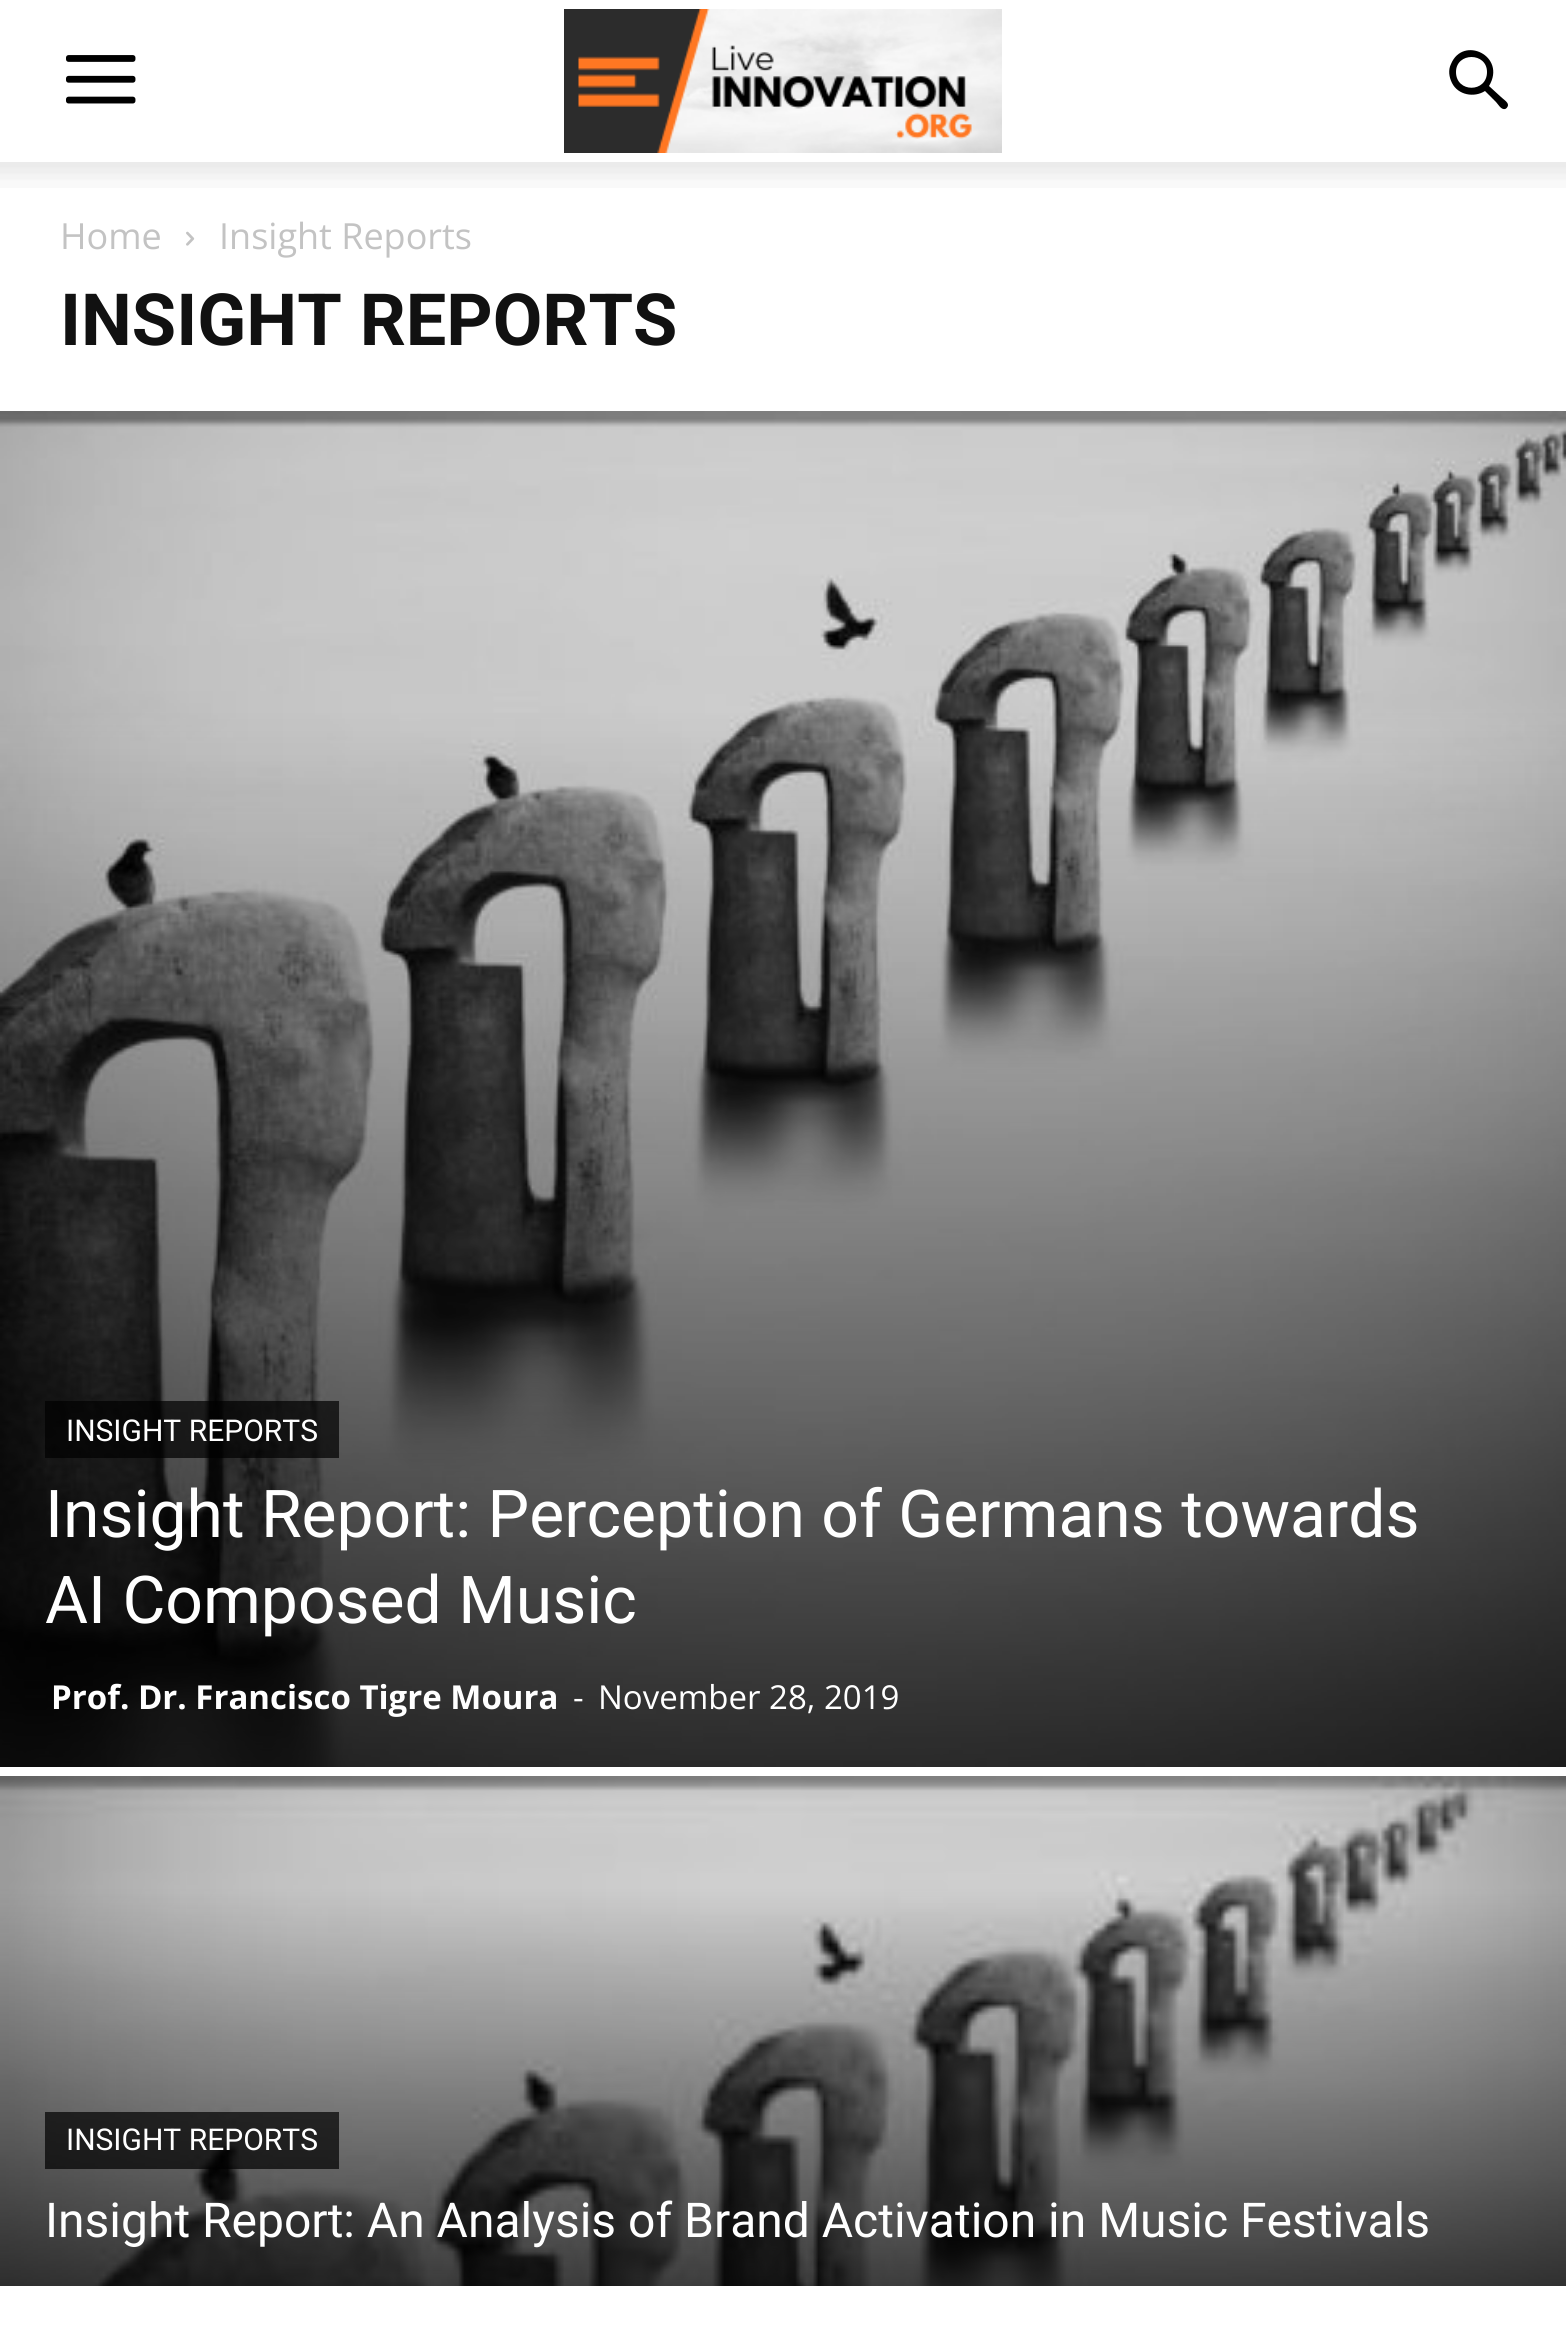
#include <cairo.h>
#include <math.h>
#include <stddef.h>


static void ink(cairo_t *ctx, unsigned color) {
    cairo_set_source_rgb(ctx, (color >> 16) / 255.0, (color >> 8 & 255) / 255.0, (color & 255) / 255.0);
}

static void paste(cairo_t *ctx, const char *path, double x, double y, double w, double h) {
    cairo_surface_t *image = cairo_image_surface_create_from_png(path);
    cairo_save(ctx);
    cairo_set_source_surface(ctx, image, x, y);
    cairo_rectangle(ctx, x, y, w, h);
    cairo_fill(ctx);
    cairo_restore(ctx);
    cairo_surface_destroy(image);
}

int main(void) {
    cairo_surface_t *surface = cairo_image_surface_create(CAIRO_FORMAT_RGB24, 1566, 2328);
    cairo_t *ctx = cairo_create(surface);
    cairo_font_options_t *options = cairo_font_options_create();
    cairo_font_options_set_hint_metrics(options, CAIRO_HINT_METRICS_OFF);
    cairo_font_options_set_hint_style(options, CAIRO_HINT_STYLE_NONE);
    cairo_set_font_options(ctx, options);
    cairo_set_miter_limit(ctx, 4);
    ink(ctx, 0xFFFFFF);
    cairo_paint(ctx);
    paste(ctx, "media/1.png", 66, 55, 70, 49);
    paste(ctx, "media/2.png", 564, 9, 438, 144);
    ink(ctx, 0x000000);
    cairo_new_path(ctx);
    cairo_move_to(ctx, 1487, 72);
    cairo_curve_to(ctx, 1487, 93, 1456, 93, 1456, 72);
    cairo_curve_to(ctx, 1456, 52, 1487, 52, 1487, 72);
    cairo_close_path(ctx);
    cairo_move_to(ctx, 1508, 105);
    cairo_curve_to(ctx, 1508, 102, 1503, 99, 1501, 97);
    cairo_line_to(ctx, 1489, 86);
    cairo_curve_to(ctx, 1507, 56, 1463, 35, 1451, 64);
    cairo_curve_to(ctx, 1448, 70, 1449, 77, 1452, 83);
    cairo_curve_to(ctx, 1458, 95, 1474, 98, 1485, 91);
    cairo_line_to(ctx, 1496, 102);
    cairo_curve_to(ctx, 1498, 104, 1501, 110, 1505, 109);
    cairo_curve_to(ctx, 1506, 109, 1508, 107, 1508, 105);
    cairo_close_path(ctx);
    cairo_fill(ctx);
    paste(ctx, "media/3.png", 0, 162, 1566, 26);
    cairo_select_font_face(ctx, "Open Sans", CAIRO_FONT_SLANT_NORMAL, CAIRO_FONT_WEIGHT_NORMAL);
    cairo_set_font_size(ctx, 36);
    ink(ctx, 0xC3C3C3);
    cairo_move_to(ctx, 60, 249);
    cairo_show_text(ctx, "Home");
    paste(ctx, "media/4.png", 186, 231, 9, 15);
    cairo_move_to(ctx, 219, 249);
    cairo_show_text(ctx, "Insight Reports");
    cairo_select_font_face(ctx, "Roboto", CAIRO_FONT_SLANT_NORMAL, CAIRO_FONT_WEIGHT_BOLD);
    cairo_set_font_size(ctx, 72);
    ink(ctx, 0x111111);
    cairo_move_to(ctx, 60, 345);
    cairo_show_text(ctx, "INSIGHT REPORTS");
    paste(ctx, "media/5.png", 0, 411, 1566, 1356);
    cairo_set_source_rgba(ctx, 0, 0, 0, 0.7);
    cairo_rectangle(ctx, 45, 1401, 294, 57);
    cairo_fill(ctx);
    cairo_select_font_face(ctx, "Roboto", CAIRO_FONT_SLANT_NORMAL, CAIRO_FONT_WEIGHT_NORMAL);
    cairo_set_font_size(ctx, 30);
    ink(ctx, 0xFFFFFF);
    cairo_move_to(ctx, 66, 1441);
    cairo_show_text(ctx, "INSIGHT REPORTS");
    cairo_set_font_size(ctx, 66);
    cairo_move_to(ctx, 45, 1537);
    cairo_show_text(ctx, "Insight Report: Perception of Germans towards");
    cairo_move_to(ctx, 45, 1623);
    cairo_show_text(ctx, "AI Composed Music");
    cairo_select_font_face(ctx, "Open Sans", CAIRO_FONT_SLANT_NORMAL, CAIRO_FONT_WEIGHT_BOLD);
    cairo_set_font_size(ctx, 33);
    cairo_move_to(ctx, 51, 1709);
    cairo_show_text(ctx, "Prof. Dr. Francisco Tigre Moura");
    cairo_select_font_face(ctx, "Open Sans", CAIRO_FONT_SLANT_NORMAL, CAIRO_FONT_WEIGHT_NORMAL);
    cairo_move_to(ctx, 573, 1709);
    cairo_show_text(ctx, "-");
    cairo_move_to(ctx, 598, 1709);
    cairo_show_text(ctx, "November 28, 2019");
    paste(ctx, "media/6.png", 0, 1776, 1566, 510);
    cairo_set_source_rgba(ctx, 0, 0, 0, 0.7);
    cairo_rectangle(ctx, 45, 2112, 294, 57);
    cairo_fill(ctx);
    cairo_select_font_face(ctx, "Roboto", CAIRO_FONT_SLANT_NORMAL, CAIRO_FONT_WEIGHT_NORMAL);
    cairo_set_font_size(ctx, 30);
    ink(ctx, 0xFFFFFF);
    cairo_move_to(ctx, 66, 2150);
    cairo_show_text(ctx, "INSIGHT REPORTS");
    cairo_set_font_size(ctx, 48);
    cairo_move_to(ctx, 45, 2237);
    cairo_show_text(ctx, "Insight Report: An Analysis of Brand Activation in Music Festivals");
    cairo_surface_write_to_png(surface, "image.png");
    cairo_font_options_destroy(options);
    cairo_destroy(ctx);
    cairo_surface_destroy(surface);
    return 0;
}
